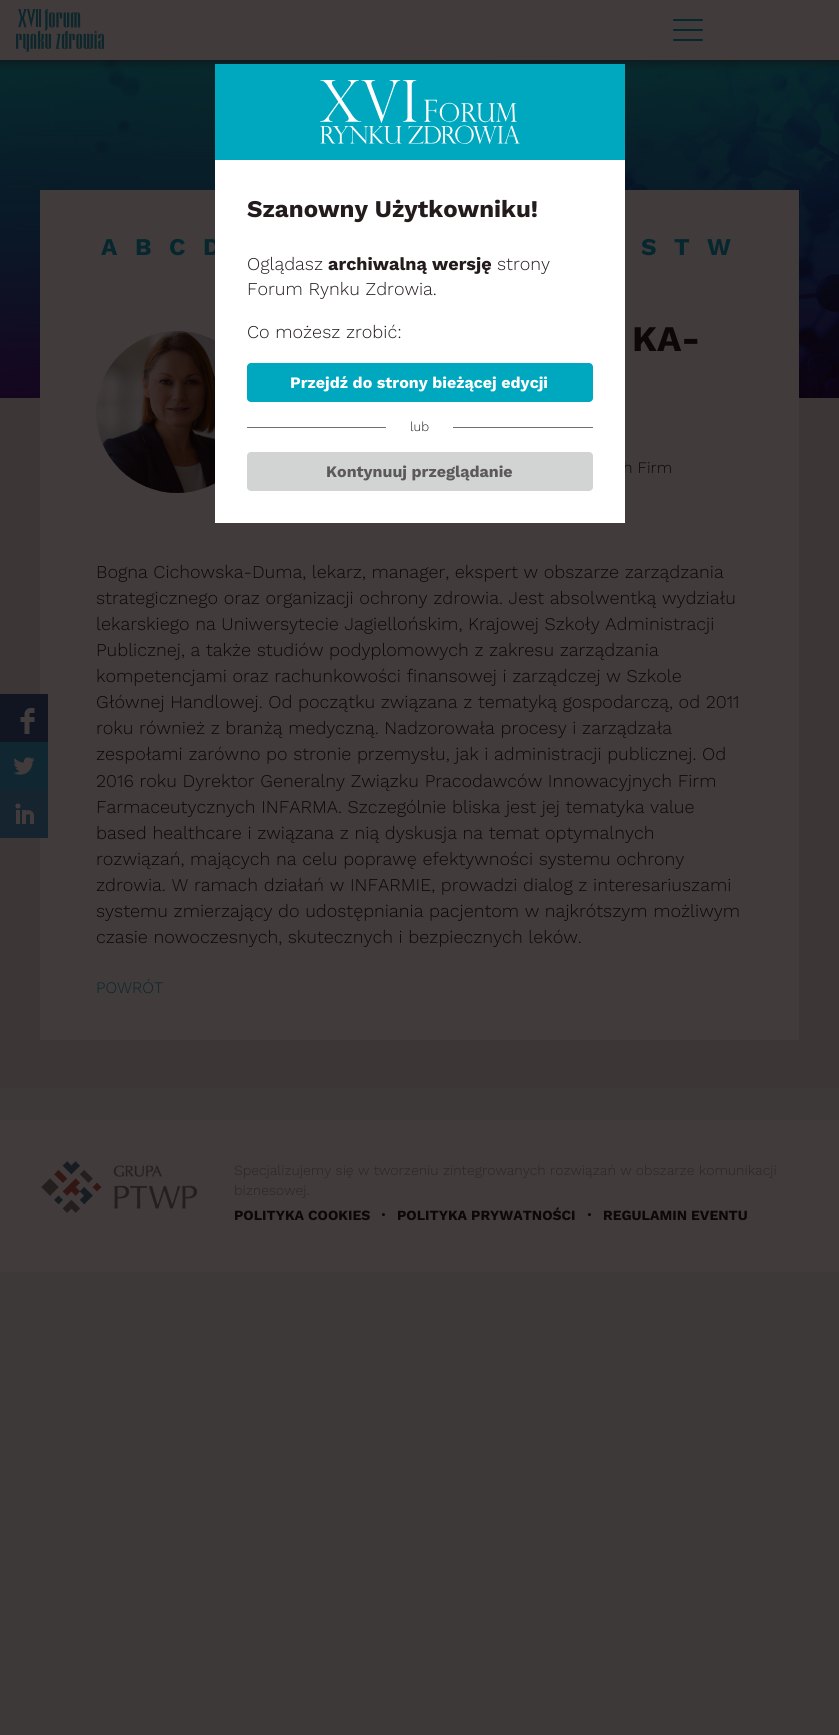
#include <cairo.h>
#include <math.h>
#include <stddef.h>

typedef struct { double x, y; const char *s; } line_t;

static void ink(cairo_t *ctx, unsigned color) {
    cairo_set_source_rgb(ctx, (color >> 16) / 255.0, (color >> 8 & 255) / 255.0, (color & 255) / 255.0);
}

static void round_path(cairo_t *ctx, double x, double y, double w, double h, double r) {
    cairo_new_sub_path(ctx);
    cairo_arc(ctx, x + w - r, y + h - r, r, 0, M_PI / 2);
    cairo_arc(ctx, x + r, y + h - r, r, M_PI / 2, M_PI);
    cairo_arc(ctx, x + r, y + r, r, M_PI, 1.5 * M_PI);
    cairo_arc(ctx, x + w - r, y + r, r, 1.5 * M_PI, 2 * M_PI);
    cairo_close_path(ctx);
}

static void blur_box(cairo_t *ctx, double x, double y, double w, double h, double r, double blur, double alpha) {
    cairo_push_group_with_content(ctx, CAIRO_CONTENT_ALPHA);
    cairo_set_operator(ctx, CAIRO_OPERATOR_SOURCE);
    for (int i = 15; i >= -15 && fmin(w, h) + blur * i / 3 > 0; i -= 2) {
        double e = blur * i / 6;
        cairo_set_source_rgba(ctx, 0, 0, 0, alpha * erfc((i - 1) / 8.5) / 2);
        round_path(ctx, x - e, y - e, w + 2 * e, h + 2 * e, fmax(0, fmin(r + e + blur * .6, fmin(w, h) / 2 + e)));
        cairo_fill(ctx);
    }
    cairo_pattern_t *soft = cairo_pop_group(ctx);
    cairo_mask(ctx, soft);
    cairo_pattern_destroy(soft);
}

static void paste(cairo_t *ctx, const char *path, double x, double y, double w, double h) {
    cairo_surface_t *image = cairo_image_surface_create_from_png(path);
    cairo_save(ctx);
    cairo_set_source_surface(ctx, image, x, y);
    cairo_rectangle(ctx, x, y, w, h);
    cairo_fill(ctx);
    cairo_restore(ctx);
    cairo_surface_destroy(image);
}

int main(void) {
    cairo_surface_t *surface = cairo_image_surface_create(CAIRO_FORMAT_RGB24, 839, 1735);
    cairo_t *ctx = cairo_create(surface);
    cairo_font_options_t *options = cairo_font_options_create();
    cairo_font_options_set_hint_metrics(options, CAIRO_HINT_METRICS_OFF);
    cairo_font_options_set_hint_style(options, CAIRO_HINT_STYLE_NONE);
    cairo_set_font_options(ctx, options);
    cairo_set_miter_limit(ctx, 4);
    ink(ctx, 0x3E3939);
    cairo_paint(ctx);
    paste(ctx, "media/2.png", 0, 60, 839, 338);
    ink(ctx, 0x120C0C);
    blur_box(ctx, -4, -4, 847, 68, 0, 4, 0.5);
    ink(ctx, 0x413B3B);
    cairo_rectangle(ctx, 0, 0, 839, 60);
    cairo_fill(ctx);
    paste(ctx, "media/1.png", 16, 9, 88, 43);
    ink(ctx, 0x06272D);
    round_path(ctx, 673, 19, 30, 2, 1);
    cairo_fill(ctx);
    round_path(ctx, 673, 29, 30, 2, 1);
    cairo_fill(ctx);
    round_path(ctx, 673, 39, 30, 2, 1);
    cairo_fill(ctx);
    ink(ctx, 0x3C3636);
    cairo_rectangle(ctx, 0, 398, 839, 690);
    cairo_fill(ctx);
    ink(ctx, 0x413B3B);
    cairo_rectangle(ctx, 40, 190, 759, 850);
    cairo_fill(ctx);
    cairo_select_font_face(ctx, "Work Sans", CAIRO_FONT_SLANT_NORMAL, CAIRO_FONT_WEIGHT_BOLD);
    cairo_set_font_size(ctx, 24);
    ink(ctx, 0x06272D);
    cairo_move_to(ctx, 203, 255);
    cairo_show_text(ctx, "D");
    cairo_select_font_face(ctx, "Work Sans Light", CAIRO_FONT_SLANT_NORMAL, CAIRO_FONT_WEIGHT_NORMAL);
    cairo_set_font_size(ctx, 16);
    ink(ctx, 0x0E0707);
    cairo_move_to(ctx, 623, 473);
    cairo_show_text(ctx, "h Firm");
    ink(ctx, 0xFFFFFF);
    cairo_rectangle(ctx, 215, 160, 410, 363);
    cairo_fill(ctx);
    ink(ctx, 0x00A8BF);
    cairo_rectangle(ctx, 215, 64, 410, 96);
    cairo_fill(ctx);
    paste(ctx, "media/3.png", 320, 80, 200, 64);
    cairo_select_font_face(ctx, "Work Sans", CAIRO_FONT_SLANT_NORMAL, CAIRO_FONT_WEIGHT_BOLD);
    cairo_set_font_size(ctx, 24);
    ink(ctx, 0x241C1C);
    cairo_move_to(ctx, 247, 217);
    cairo_show_text(ctx, "Szanowny Użytkowniku!");
    cairo_select_font_face(ctx, "Work Sans Light", CAIRO_FONT_SLANT_NORMAL, CAIRO_FONT_WEIGHT_NORMAL);
    cairo_set_font_size(ctx, 18);
    cairo_move_to(ctx, 247, 270);
    cairo_show_text(ctx, "Oglądasz");
    cairo_select_font_face(ctx, "Work Sans", CAIRO_FONT_SLANT_NORMAL, CAIRO_FONT_WEIGHT_BOLD);
    cairo_move_to(ctx, 328, 270);
    cairo_show_text(ctx, "archiwalną wersję");
    cairo_select_font_face(ctx, "Work Sans Light", CAIRO_FONT_SLANT_NORMAL, CAIRO_FONT_WEIGHT_NORMAL);
    {
        static const line_t items[] = {
            {497, 270, "strony"},
            {247, 295, "Forum Rynku Zdrowia."},
            {247, 338, "Co możesz zrobić:"},
        };
        for (size_t i = 0; i < sizeof items / sizeof *items; i++) {
            cairo_move_to(ctx, items[i].x, items[i].y);
            cairo_show_text(ctx, items[i].s);
        }
    }
    ink(ctx, 0x00A8BF);
    round_path(ctx, 247, 363, 346, 39, 4);
    cairo_fill(ctx);
    cairo_select_font_face(ctx, "Work Sans", CAIRO_FONT_SLANT_NORMAL, CAIRO_FONT_WEIGHT_BOLD);
    cairo_set_font_size(ctx, 16);
    ink(ctx, 0xFFFFFF);
    cairo_move_to(ctx, 290, 388);
    cairo_show_text(ctx, "Przejdź do strony bieżącej edycji");
    ink(ctx, 0x707070);
    cairo_rectangle(ctx, 247, 427, 346, 1);
    cairo_fill(ctx);
    ink(ctx, 0xFFFFFF);
    cairo_rectangle(ctx, 386, 427, 67, 1);
    cairo_fill(ctx);
    cairo_select_font_face(ctx, "Work Sans Light", CAIRO_FONT_SLANT_NORMAL, CAIRO_FONT_WEIGHT_NORMAL);
    cairo_set_font_size(ctx, 13);
    ink(ctx, 0x241C1C);
    cairo_move_to(ctx, 410, 431);
    cairo_show_text(ctx, "lub");
    ink(ctx, 0xD2D3D3);
    round_path(ctx, 247, 452, 346, 39, 4);
    cairo_fill(ctx);
    cairo_select_font_face(ctx, "Work Sans", CAIRO_FONT_SLANT_NORMAL, CAIRO_FONT_WEIGHT_BOLD);
    cairo_set_font_size(ctx, 16);
    ink(ctx, 0x5C5959);
    cairo_move_to(ctx, 326, 477);
    cairo_show_text(ctx, "Kontynuuj przeglądanie");
    paste(ctx, "media/4.png", 0, 694, 48, 48);
    paste(ctx, "media/5.png", 0, 742, 48, 48);
    paste(ctx, "media/6.png", 0, 790, 48, 48);
    cairo_set_font_size(ctx, 24);
    ink(ctx, 0x06272D);
    {
        static const line_t items[] = {
            {101, 255, "A"},
            {135, 255, "B"},
            {169, 255, "C"},
            {641, 255, "S"},
            {674, 255, "T"},
            {707, 255, "W"},
        };
        for (size_t i = 0; i < sizeof items / sizeof *items; i++) {
            cairo_move_to(ctx, items[i].x, items[i].y);
            cairo_show_text(ctx, items[i].s);
        }
    }
    paste(ctx, "media/7.png", 96, 331, 119, 162);
    cairo_set_font_size(ctx, 36);
    ink(ctx, 0x0E0707);
    cairo_move_to(ctx, 632, 351);
    cairo_show_text(ctx, "KA-");
    cairo_select_font_face(ctx, "Work Sans Light", CAIRO_FONT_SLANT_NORMAL, CAIRO_FONT_WEIGHT_NORMAL);
    cairo_set_font_size(ctx, 18);
    {
        static const line_t items[] = {
            {96, 578, "Bogna Cichowska-Duma, lekarz, manager, ekspert w obszarze zarządzania"},
            {96, 604, "strategicznego oraz organizacji ochrony zdrowia. Jest absolwentką wydziału"},
            {96, 630, "lekarskiego na Uniwersytecie Jagiellońskim, Krajowej Szkoły Administracji"},
            {96, 656, "Publicznej, a także studiów podyplomowych z zakresu zarządzania"},
            {96, 682, "kompetencjami oraz rachunkowości finansowej i zarządczej w Szkole"},
            {96, 708, "Głównej Handlowej. Od początku związana z tematyką gospodarczą, od 2011"},
            {96, 734, "roku również z branżą medyczną. Nadzorowała procesy i zarządzała"},
            {96, 760, "zespołami zarówno po stronie przemysłu, jak i administracji publicznej. Od"},
            {96, 787, "2016 roku Dyrektor Generalny Związku Pracodawców Innowacyjnych Firm"},
            {96, 813, "Farmaceutycznych INFARMA. Szczególnie bliska jest jej tematyka value"},
            {96, 839, "based healthcare i związana z nią dyskusja na temat optymalnych"},
            {96, 865, "rozwiązań, mających na celu poprawę efektywności systemu ochrony"},
            {96, 891, "zdrowia. W ramach działań w INFARMIE, prowadzi dialog z interesariuszami"},
            {96, 917, "systemu zmierzający do udostępniania pacjentom w najkrótszym możliwym"},
            {96, 943, "czasie nowoczesnych, skutecznych i bezpiecznych leków."},
        };
        for (size_t i = 0; i < sizeof items / sizeof *items; i++) {
            cairo_move_to(ctx, items[i].x, items[i].y);
            cairo_show_text(ctx, items[i].s);
        }
    }
    cairo_set_font_size(ctx, 16);
    ink(ctx, 0x06272D);
    cairo_move_to(ctx, 96, 993);
    cairo_show_text(ctx, "POWRÓT");
    ink(ctx, 0x413B3B);
    cairo_rectangle(ctx, 0, 1120, 839, 152);
    cairo_fill(ctx);
    paste(ctx, "media/8.png", 41, 1161, 156, 52);
    cairo_set_font_size(ctx, 14);
    ink(ctx, 0x2B2525);
    cairo_move_to(ctx, 234, 1175);
    cairo_show_text(ctx, "Specjalizujemy się w tworzeniu zintegrowanych rozwiązań w obszarze komunikacji");
    cairo_move_to(ctx, 234, 1195);
    cairo_show_text(ctx, "biznesowej.");
    cairo_select_font_face(ctx, "Work Sans", CAIRO_FONT_SLANT_NORMAL, CAIRO_FONT_WEIGHT_BOLD);
    ink(ctx, 0x0E0707);
    cairo_move_to(ctx, 234, 1220);
    cairo_show_text(ctx, "POLITYKA COOKIES");
    cairo_select_font_face(ctx, "Work Sans Light", CAIRO_FONT_SLANT_NORMAL, CAIRO_FONT_WEIGHT_NORMAL);
    cairo_set_font_size(ctx, 16);
    cairo_move_to(ctx, 380, 1220);
    cairo_show_text(ctx, "•");
    cairo_select_font_face(ctx, "Work Sans", CAIRO_FONT_SLANT_NORMAL, CAIRO_FONT_WEIGHT_BOLD);
    cairo_set_font_size(ctx, 14);
    cairo_move_to(ctx, 397, 1220);
    cairo_show_text(ctx, "POLITYKA PRYWATNOŚCI");
    cairo_select_font_face(ctx, "Work Sans Light", CAIRO_FONT_SLANT_NORMAL, CAIRO_FONT_WEIGHT_NORMAL);
    cairo_set_font_size(ctx, 16);
    cairo_move_to(ctx, 586, 1220);
    cairo_show_text(ctx, "•");
    cairo_select_font_face(ctx, "Work Sans", CAIRO_FONT_SLANT_NORMAL, CAIRO_FONT_WEIGHT_BOLD);
    cairo_set_font_size(ctx, 14);
    cairo_move_to(ctx, 603, 1220);
    cairo_show_text(ctx, "REGULAMIN EVENTU");
    cairo_surface_write_to_png(surface, "image.png");
    cairo_font_options_destroy(options);
    cairo_destroy(ctx);
    cairo_surface_destroy(surface);
    return 0;
}
